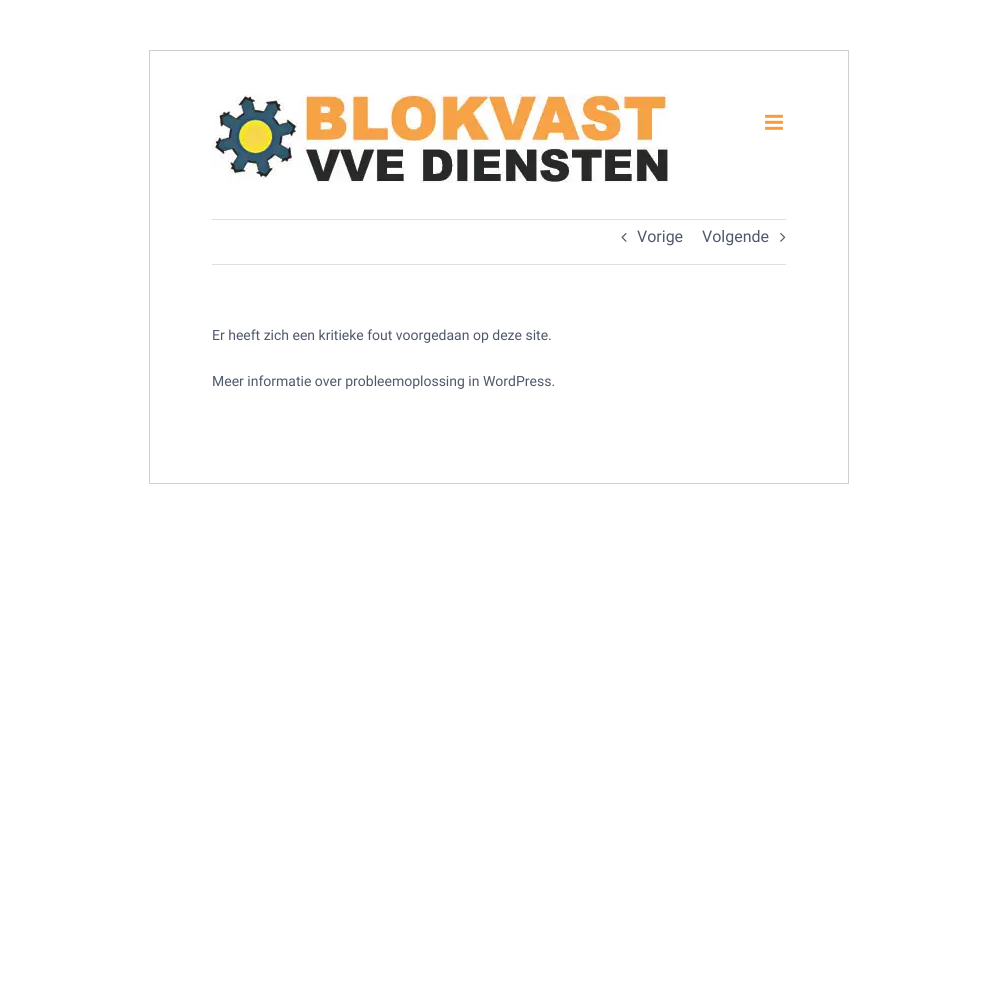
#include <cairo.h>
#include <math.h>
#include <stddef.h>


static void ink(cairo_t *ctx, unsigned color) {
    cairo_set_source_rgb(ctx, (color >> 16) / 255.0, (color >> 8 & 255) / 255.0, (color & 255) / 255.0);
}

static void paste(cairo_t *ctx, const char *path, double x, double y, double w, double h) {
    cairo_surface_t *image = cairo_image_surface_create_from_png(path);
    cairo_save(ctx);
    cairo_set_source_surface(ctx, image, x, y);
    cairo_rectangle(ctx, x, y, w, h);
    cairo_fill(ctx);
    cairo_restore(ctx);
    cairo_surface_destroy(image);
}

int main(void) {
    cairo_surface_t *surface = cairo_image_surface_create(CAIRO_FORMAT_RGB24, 997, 992);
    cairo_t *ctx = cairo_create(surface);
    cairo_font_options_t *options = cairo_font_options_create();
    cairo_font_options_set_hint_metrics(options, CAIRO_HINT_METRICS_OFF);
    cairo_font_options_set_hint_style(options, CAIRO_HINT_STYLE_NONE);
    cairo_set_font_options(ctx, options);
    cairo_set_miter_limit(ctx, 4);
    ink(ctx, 0xFFFFFF);
    cairo_paint(ctx);
    cairo_rectangle(ctx, 149.5, 50.5, 699, 433);
    ink(ctx, 0xCCD0D4);
    cairo_set_line_width(ctx, 1);
    cairo_stroke(ctx);
    paste(ctx, "media/1.png", 212, 93, 458, 90);
    paste(ctx, "media/2.png", 765, 114, 18, 16);
    ink(ctx, 0xE0DEDE);
    cairo_rectangle(ctx, 212, 219, 574, 1);
    cairo_fill(ctx);
    cairo_rectangle(ctx, 212, 264, 574, 1);
    cairo_fill(ctx);
    paste(ctx, "media/3.png", 621, 233, 6, 9);
    cairo_select_font_face(ctx, "Roboto", CAIRO_FONT_SLANT_NORMAL, CAIRO_FONT_WEIGHT_NORMAL);
    cairo_set_font_size(ctx, 16);
    ink(ctx, 0x50586B);
    cairo_move_to(ctx, 637, 242);
    cairo_show_text(ctx, "Vorige");
    cairo_move_to(ctx, 702, 242);
    cairo_show_text(ctx, "Volgende");
    paste(ctx, "media/4.png", 780, 233, 6, 9);
    cairo_set_font_size(ctx, 14);
    cairo_move_to(ctx, 212, 340);
    cairo_show_text(ctx, "Er heeft zich een kritieke fout voorgedaan op deze site.");
    cairo_move_to(ctx, 212, 386);
    cairo_show_text(ctx, "Meer informatie over probleemoplossing in WordPress.");
    cairo_surface_write_to_png(surface, "image.png");
    cairo_font_options_destroy(options);
    cairo_destroy(ctx);
    cairo_surface_destroy(surface);
    return 0;
}
